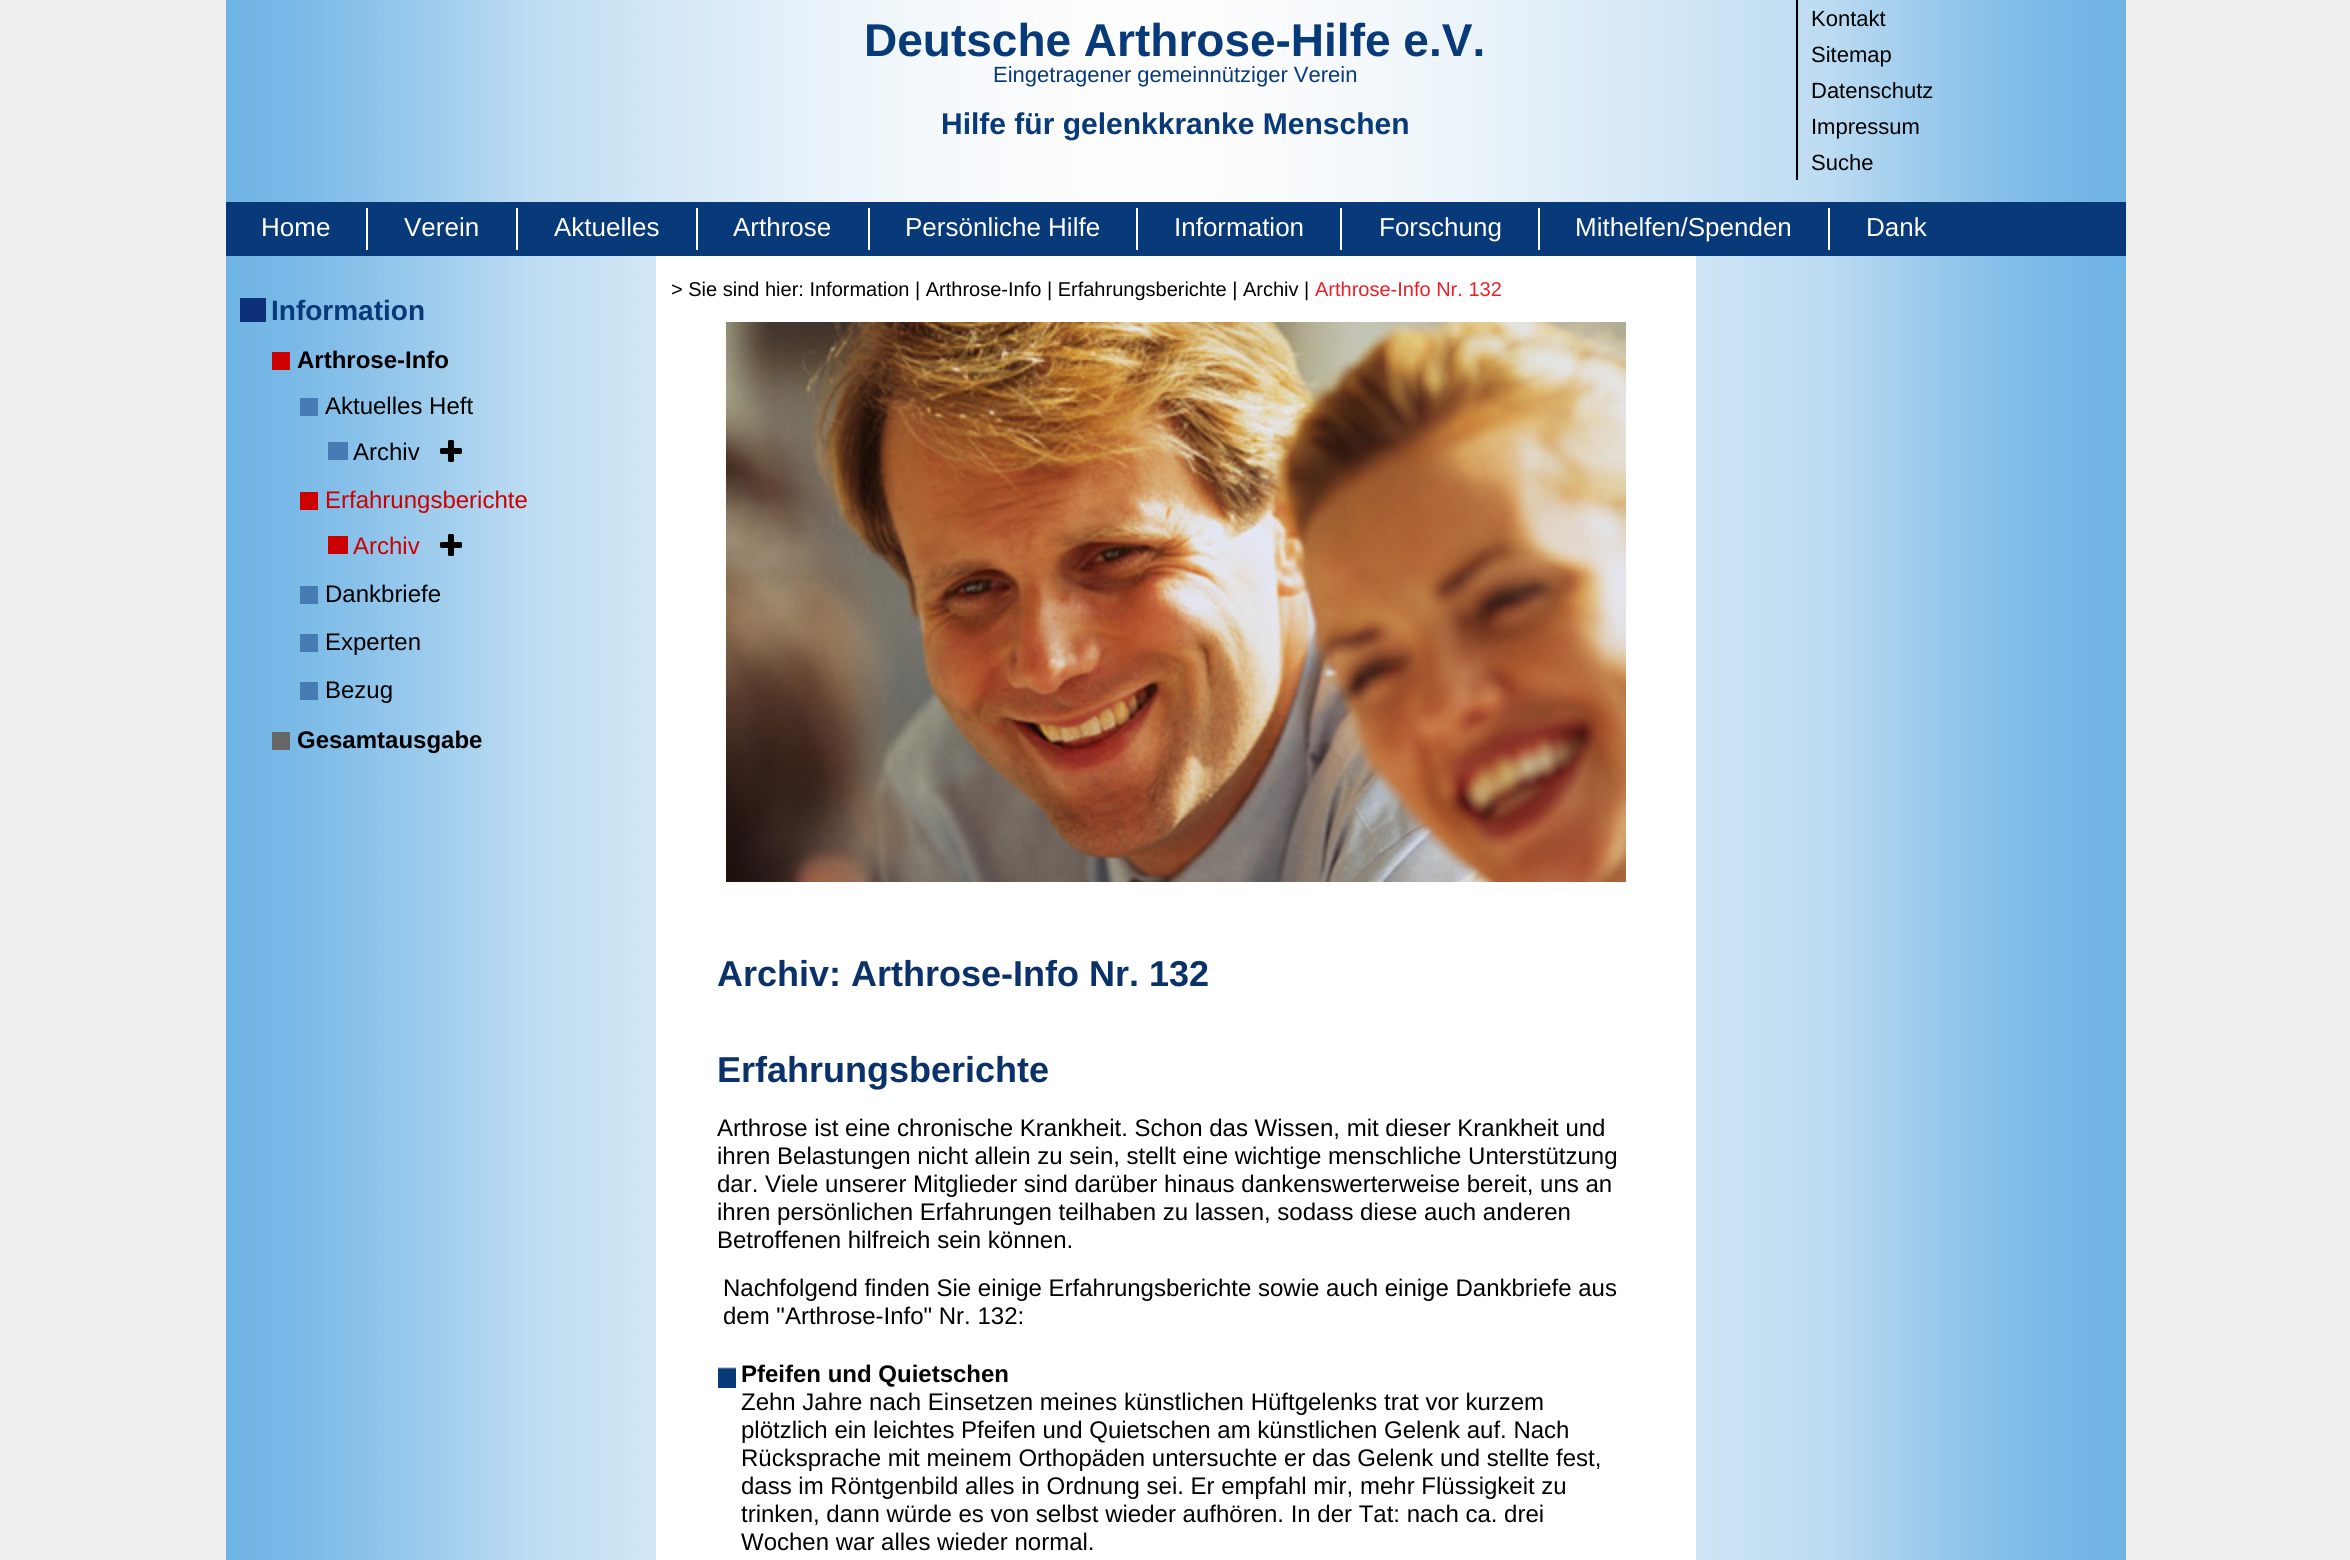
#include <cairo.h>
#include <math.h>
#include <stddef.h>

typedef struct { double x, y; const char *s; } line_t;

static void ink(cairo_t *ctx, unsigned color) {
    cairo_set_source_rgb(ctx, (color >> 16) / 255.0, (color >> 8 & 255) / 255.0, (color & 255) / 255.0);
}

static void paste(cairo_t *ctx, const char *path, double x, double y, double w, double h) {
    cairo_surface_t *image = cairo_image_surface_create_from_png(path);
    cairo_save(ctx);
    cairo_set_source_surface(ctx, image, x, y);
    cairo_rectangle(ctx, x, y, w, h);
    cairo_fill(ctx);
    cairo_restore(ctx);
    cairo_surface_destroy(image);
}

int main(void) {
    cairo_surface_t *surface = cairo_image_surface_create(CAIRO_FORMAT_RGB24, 2350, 1560);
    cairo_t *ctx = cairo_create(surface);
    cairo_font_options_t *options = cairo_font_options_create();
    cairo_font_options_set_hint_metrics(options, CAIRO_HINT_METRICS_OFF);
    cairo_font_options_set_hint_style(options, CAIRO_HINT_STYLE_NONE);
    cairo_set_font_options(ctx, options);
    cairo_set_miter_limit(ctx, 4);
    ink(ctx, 0xEEEEEE);
    cairo_paint(ctx);
    paste(ctx, "media/1.png", 226, 0, 1900, 1560);
    cairo_select_font_face(ctx, "Liberation Sans", CAIRO_FONT_SLANT_NORMAL, CAIRO_FONT_WEIGHT_BOLD);
    cairo_set_font_size(ctx, 46);
    ink(ctx, 0x083978);
    cairo_move_to(ctx, 864, 56);
    cairo_show_text(ctx, "Deutsche Arthrose-Hilfe e.V.");
    cairo_select_font_face(ctx, "Liberation Sans", CAIRO_FONT_SLANT_NORMAL, CAIRO_FONT_WEIGHT_NORMAL);
    cairo_set_font_size(ctx, 22);
    cairo_move_to(ctx, 993, 82);
    cairo_show_text(ctx, "Eingetragener gemeinnütziger Verein");
    cairo_select_font_face(ctx, "Liberation Sans", CAIRO_FONT_SLANT_NORMAL, CAIRO_FONT_WEIGHT_BOLD);
    cairo_set_font_size(ctx, 30);
    cairo_move_to(ctx, 941, 134);
    cairo_show_text(ctx, "Hilfe für gelenkkranke Menschen");
    ink(ctx, 0x000000);
    cairo_rectangle(ctx, 1796, 0, 2, 180);
    cairo_fill(ctx);
    cairo_select_font_face(ctx, "Liberation Sans", CAIRO_FONT_SLANT_NORMAL, CAIRO_FONT_WEIGHT_NORMAL);
    cairo_set_font_size(ctx, 22);
    {
        static const line_t items[] = {
            {1811, 26, "Kontakt"},
            {1811, 62, "Sitemap"},
            {1811, 98, "Datenschutz"},
            {1811, 134, "Impressum"},
            {1811, 170, "Suche"},
        };
        for (size_t i = 0; i < sizeof items / sizeof *items; i++) {
            cairo_move_to(ctx, items[i].x, items[i].y);
            cairo_show_text(ctx, items[i].s);
        }
    }
    ink(ctx, 0x083978);
    cairo_rectangle(ctx, 226, 202, 1900, 54);
    cairo_fill(ctx);
    ink(ctx, 0xFFFFFF);
    cairo_rectangle(ctx, 366, 208, 2, 42);
    cairo_fill(ctx);
    cairo_set_font_size(ctx, 26);
    cairo_move_to(ctx, 261, 236);
    cairo_show_text(ctx, "Home");
    cairo_rectangle(ctx, 516, 208, 2, 42);
    cairo_fill(ctx);
    cairo_move_to(ctx, 404, 236);
    cairo_show_text(ctx, "Verein");
    cairo_rectangle(ctx, 696, 208, 2, 42);
    cairo_fill(ctx);
    cairo_move_to(ctx, 554, 236);
    cairo_show_text(ctx, "Aktuelles");
    cairo_rectangle(ctx, 868, 208, 2, 42);
    cairo_fill(ctx);
    cairo_move_to(ctx, 733, 236);
    cairo_show_text(ctx, "Arthrose");
    cairo_rectangle(ctx, 1136, 208, 2, 42);
    cairo_fill(ctx);
    cairo_move_to(ctx, 905, 236);
    cairo_show_text(ctx, "Persönliche Hilfe");
    cairo_rectangle(ctx, 1340, 208, 2, 42);
    cairo_fill(ctx);
    cairo_move_to(ctx, 1174, 236);
    cairo_show_text(ctx, "Information");
    cairo_rectangle(ctx, 1538, 208, 2, 42);
    cairo_fill(ctx);
    cairo_move_to(ctx, 1379, 236);
    cairo_show_text(ctx, "Forschung");
    cairo_rectangle(ctx, 1828, 208, 2, 42);
    cairo_fill(ctx);
    cairo_move_to(ctx, 1575, 236);
    cairo_show_text(ctx, "Mithelfen/Spenden");
    cairo_move_to(ctx, 1866, 236);
    cairo_show_text(ctx, "Dank");
    ink(ctx, 0x0D3078);
    cairo_rectangle(ctx, 240, 298, 26, 24);
    cairo_fill(ctx);
    cairo_select_font_face(ctx, "Liberation Sans", CAIRO_FONT_SLANT_NORMAL, CAIRO_FONT_WEIGHT_BOLD);
    cairo_set_font_size(ctx, 28);
    ink(ctx, 0x083978);
    cairo_move_to(ctx, 271, 320);
    cairo_show_text(ctx, "Information");
    ink(ctx, 0xCC0000);
    cairo_rectangle(ctx, 272, 352, 18, 18);
    cairo_fill(ctx);
    cairo_set_font_size(ctx, 24);
    ink(ctx, 0x000000);
    cairo_move_to(ctx, 297, 368);
    cairo_show_text(ctx, "Arthrose-Info");
    ink(ctx, 0x477BB4);
    cairo_rectangle(ctx, 300, 398, 18, 18);
    cairo_fill(ctx);
    cairo_select_font_face(ctx, "Liberation Sans", CAIRO_FONT_SLANT_NORMAL, CAIRO_FONT_WEIGHT_NORMAL);
    ink(ctx, 0x000000);
    cairo_move_to(ctx, 325, 414);
    cairo_show_text(ctx, "Aktuelles Heft");
    ink(ctx, 0x477BB4);
    cairo_rectangle(ctx, 328, 442, 20, 18);
    cairo_fill(ctx);
    ink(ctx, 0x000000);
    cairo_move_to(ctx, 353, 460);
    cairo_show_text(ctx, "Archiv");
    paste(ctx, "media/2.png", 440, 440, 22, 22);
    ink(ctx, 0xCC0000);
    cairo_rectangle(ctx, 300, 492, 18, 18);
    cairo_fill(ctx);
    cairo_move_to(ctx, 325, 508);
    cairo_show_text(ctx, "Erfahrungsberichte");
    cairo_rectangle(ctx, 328, 536, 20, 18);
    cairo_fill(ctx);
    cairo_move_to(ctx, 353, 554);
    cairo_show_text(ctx, "Archiv");
    paste(ctx, "media/2.png", 440, 534, 22, 22);
    ink(ctx, 0x477BB4);
    cairo_rectangle(ctx, 300, 586, 18, 18);
    cairo_fill(ctx);
    ink(ctx, 0x000000);
    cairo_move_to(ctx, 325, 602);
    cairo_show_text(ctx, "Dankbriefe");
    ink(ctx, 0x477BB4);
    cairo_rectangle(ctx, 300, 634, 18, 18);
    cairo_fill(ctx);
    ink(ctx, 0x000000);
    cairo_move_to(ctx, 325, 650);
    cairo_show_text(ctx, "Experten");
    ink(ctx, 0x477BB4);
    cairo_rectangle(ctx, 300, 682, 18, 18);
    cairo_fill(ctx);
    ink(ctx, 0x000000);
    cairo_move_to(ctx, 325, 698);
    cairo_show_text(ctx, "Bezug");
    ink(ctx, 0x666666);
    cairo_rectangle(ctx, 272, 732, 18, 18);
    cairo_fill(ctx);
    cairo_select_font_face(ctx, "Liberation Sans", CAIRO_FONT_SLANT_NORMAL, CAIRO_FONT_WEIGHT_BOLD);
    ink(ctx, 0x000000);
    cairo_move_to(ctx, 297, 748);
    cairo_show_text(ctx, "Gesamtausgabe");
    ink(ctx, 0xFFFFFF);
    cairo_rectangle(ctx, 656, 256, 1040, 1304);
    cairo_fill(ctx);
    cairo_select_font_face(ctx, "Liberation Sans", CAIRO_FONT_SLANT_NORMAL, CAIRO_FONT_WEIGHT_NORMAL);
    cairo_set_font_size(ctx, 20);
    ink(ctx, 0x000000);
    cairo_move_to(ctx, 671, 296);
    cairo_show_text(ctx, "> Sie sind hier: Information | Arthrose-Info | Erfahrungsberichte | Archiv |");
    ink(ctx, 0xEB1E26);
    cairo_move_to(ctx, 1315, 296);
    cairo_show_text(ctx, "Arthrose-Info Nr. 132");
    paste(ctx, "media/3.png", 726, 322, 900, 560);
    cairo_select_font_face(ctx, "Liberation Sans", CAIRO_FONT_SLANT_NORMAL, CAIRO_FONT_WEIGHT_BOLD);
    cairo_set_font_size(ctx, 36);
    ink(ctx, 0x0A3169);
    cairo_move_to(ctx, 717, 986);
    cairo_show_text(ctx, "Archiv: Arthrose-Info Nr. 132");
    cairo_move_to(ctx, 717, 1082);
    cairo_show_text(ctx, "Erfahrungsberichte");
    cairo_select_font_face(ctx, "Liberation Sans", CAIRO_FONT_SLANT_NORMAL, CAIRO_FONT_WEIGHT_NORMAL);
    cairo_set_font_size(ctx, 24);
    ink(ctx, 0x000000);
    {
        static const line_t items[] = {
            {717, 1136, "Arthrose ist eine chronische Krankheit. Schon das Wissen, mit dieser Krankheit und"},
            {717, 1164, "ihren Belastungen nicht allein zu sein, stellt eine wichtige menschliche Unterstützung"},
            {717, 1192, "dar. Viele unserer Mitglieder sind darüber hinaus dankenswerterweise bereit, uns an"},
            {717, 1220, "ihren persönlichen Erfahrungen teilhaben zu lassen, sodass diese auch anderen"},
            {717, 1248, "Betroffenen hilfreich sein können."},
            {723, 1296, "Nachfolgend finden Sie einige Erfahrungsberichte sowie auch einige Dankbriefe aus"},
            {723, 1324, "dem \"Arthrose-Info\" Nr. 132:"},
        };
        for (size_t i = 0; i < sizeof items / sizeof *items; i++) {
            cairo_move_to(ctx, items[i].x, items[i].y);
            cairo_show_text(ctx, items[i].s);
        }
    }
    paste(ctx, "media/4.png", 718, 1367, 18, 21);
    cairo_select_font_face(ctx, "Liberation Sans", CAIRO_FONT_SLANT_NORMAL, CAIRO_FONT_WEIGHT_BOLD);
    cairo_move_to(ctx, 741, 1382);
    cairo_show_text(ctx, "Pfeifen und Quietschen");
    cairo_select_font_face(ctx, "Liberation Sans", CAIRO_FONT_SLANT_NORMAL, CAIRO_FONT_WEIGHT_NORMAL);
    {
        static const line_t items[] = {
            {741, 1410, "Zehn Jahre nach Einsetzen meines künstlichen Hüftgelenks trat vor kurzem"},
            {741, 1438, "plötzlich ein leichtes Pfeifen und Quietschen am künstlichen Gelenk auf. Nach"},
            {741, 1466, "Rücksprache mit meinem Orthopäden untersuchte er das Gelenk und stellte fest,"},
            {741, 1494, "dass im Röntgenbild alles in Ordnung sei. Er empfahl mir, mehr Flüssigkeit zu"},
            {741, 1522, "trinken, dann würde es von selbst wieder aufhören. In der Tat: nach ca. drei"},
            {741, 1550, "Wochen war alles wieder normal."},
        };
        for (size_t i = 0; i < sizeof items / sizeof *items; i++) {
            cairo_move_to(ctx, items[i].x, items[i].y);
            cairo_show_text(ctx, items[i].s);
        }
    }
    cairo_surface_write_to_png(surface, "image.png");
    cairo_font_options_destroy(options);
    cairo_destroy(ctx);
    cairo_surface_destroy(surface);
    return 0;
}
